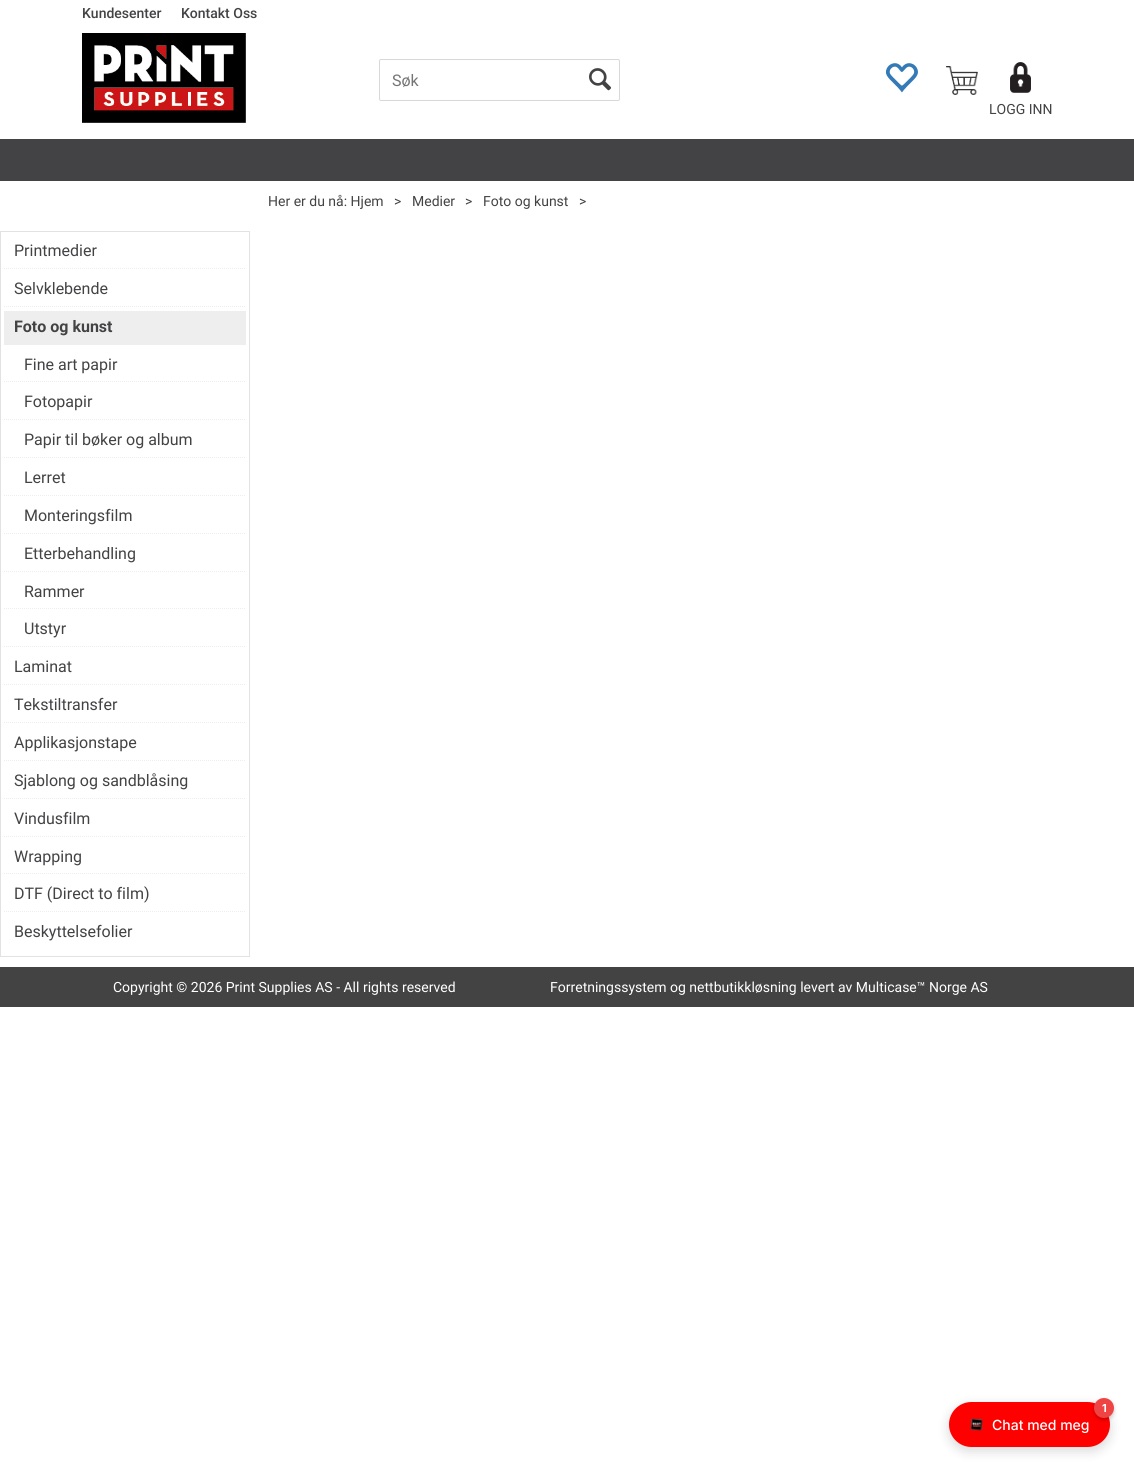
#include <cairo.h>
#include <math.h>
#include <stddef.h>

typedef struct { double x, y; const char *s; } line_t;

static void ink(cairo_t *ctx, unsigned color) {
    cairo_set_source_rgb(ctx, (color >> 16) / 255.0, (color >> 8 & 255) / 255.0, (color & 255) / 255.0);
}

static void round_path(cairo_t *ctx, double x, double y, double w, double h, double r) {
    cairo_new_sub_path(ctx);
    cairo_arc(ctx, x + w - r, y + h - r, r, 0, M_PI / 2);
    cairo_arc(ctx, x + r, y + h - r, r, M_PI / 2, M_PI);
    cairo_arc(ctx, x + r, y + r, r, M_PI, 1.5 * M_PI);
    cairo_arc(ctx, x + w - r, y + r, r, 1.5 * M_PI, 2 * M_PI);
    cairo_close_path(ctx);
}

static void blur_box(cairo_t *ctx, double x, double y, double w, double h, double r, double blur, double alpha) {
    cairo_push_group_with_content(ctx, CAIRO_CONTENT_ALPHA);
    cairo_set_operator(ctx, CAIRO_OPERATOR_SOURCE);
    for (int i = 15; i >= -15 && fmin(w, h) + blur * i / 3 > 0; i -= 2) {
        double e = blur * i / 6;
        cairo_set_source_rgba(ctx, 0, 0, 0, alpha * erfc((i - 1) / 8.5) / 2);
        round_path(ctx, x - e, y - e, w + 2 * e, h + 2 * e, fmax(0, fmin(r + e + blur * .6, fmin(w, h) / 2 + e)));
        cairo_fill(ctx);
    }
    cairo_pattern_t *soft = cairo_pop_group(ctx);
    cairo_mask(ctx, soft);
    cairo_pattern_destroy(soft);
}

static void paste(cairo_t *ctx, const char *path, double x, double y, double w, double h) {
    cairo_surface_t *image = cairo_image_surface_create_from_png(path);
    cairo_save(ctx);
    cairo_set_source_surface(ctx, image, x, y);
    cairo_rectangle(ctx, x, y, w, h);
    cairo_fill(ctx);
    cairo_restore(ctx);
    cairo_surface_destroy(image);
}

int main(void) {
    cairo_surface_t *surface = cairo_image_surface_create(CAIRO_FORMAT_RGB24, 1134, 1471);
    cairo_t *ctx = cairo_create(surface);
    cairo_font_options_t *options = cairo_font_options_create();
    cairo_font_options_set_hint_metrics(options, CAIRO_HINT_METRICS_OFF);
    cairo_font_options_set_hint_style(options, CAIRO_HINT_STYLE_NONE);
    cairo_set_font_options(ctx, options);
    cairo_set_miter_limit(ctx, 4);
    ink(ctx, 0xFFFFFF);
    cairo_paint(ctx);
    cairo_select_font_face(ctx, "Roboto Medium", CAIRO_FONT_SLANT_NORMAL, CAIRO_FONT_WEIGHT_NORMAL);
    cairo_set_font_size(ctx, 14);
    ink(ctx, 0x434244);
    cairo_move_to(ctx, 82, 18);
    cairo_show_text(ctx, "Kundesenter");
    cairo_move_to(ctx, 181, 18);
    cairo_show_text(ctx, "Kontakt Oss");
    paste(ctx, "media/1.png", 82, 33, 164, 90);
    round_path(ctx, 379.5, 59.5, 240, 41, 1.5);
    ink(ctx, 0xD7D9D9);
    cairo_set_line_width(ctx, 1);
    cairo_stroke(ctx);
    cairo_select_font_face(ctx, "Roboto", CAIRO_FONT_SLANT_NORMAL, CAIRO_FONT_WEIGHT_NORMAL);
    cairo_set_font_size(ctx, 16);
    ink(ctx, 0x757575);
    cairo_move_to(ctx, 392, 86);
    cairo_show_text(ctx, "Søk");
    paste(ctx, "media/2.png", 589, 68, 23, 23);
    paste(ctx, "media/3.png", 885, 63, 33, 30);
    paste(ctx, "media/4.png", 946, 66, 32, 29);
    paste(ctx, "media/5.png", 1010, 62, 21, 31);
    cairo_set_font_size(ctx, 14);
    ink(ctx, 0x434244);
    cairo_move_to(ctx, 989, 114);
    cairo_show_text(ctx, "LOGG INN");
    cairo_rectangle(ctx, 0, 139, 1134, 42);
    cairo_fill(ctx);
    {
        static const line_t items[] = {
            {268, 206, "Her er du nå: Hjem"},
            {394, 206, ">"},
            {412, 206, "Medier"},
            {465, 206, ">"},
            {483, 206, "Foto og kunst"},
            {579, 206, ">"},
        };
        for (size_t i = 0; i < sizeof items / sizeof *items; i++) {
            cairo_move_to(ctx, items[i].x, items[i].y);
            cairo_show_text(ctx, items[i].s);
        }
    }
    cairo_rectangle(ctx, 0.5, 231.5, 249, 725);
    ink(ctx, 0xE2E2E2);
    cairo_stroke(ctx);
    cairo_new_path(ctx);
    cairo_move_to(ctx, 4, 268.5);
    cairo_line_to(ctx, 246, 268.5);
    ink(ctx, 0xEEEEEE);
    cairo_set_dash(ctx, (double[]){1, 1}, 2, 0);
    cairo_stroke(ctx);
    cairo_set_font_size(ctx, 16);
    ink(ctx, 0x434244);
    cairo_move_to(ctx, 14, 256);
    cairo_show_text(ctx, "Printmedier");
    cairo_new_path(ctx);
    cairo_move_to(ctx, 4, 306.5);
    cairo_line_to(ctx, 246, 306.5);
    ink(ctx, 0xEEEEEE);
    cairo_stroke(ctx);
    ink(ctx, 0x434244);
    cairo_move_to(ctx, 14, 294);
    cairo_show_text(ctx, "Selvklebende");
    ink(ctx, 0xEEEEEE);
    cairo_rectangle(ctx, 4, 311, 242, 34);
    cairo_fill(ctx);
    cairo_select_font_face(ctx, "Roboto", CAIRO_FONT_SLANT_NORMAL, CAIRO_FONT_WEIGHT_BOLD);
    ink(ctx, 0x434244);
    cairo_move_to(ctx, 14, 332);
    cairo_show_text(ctx, "Foto og kunst");
    cairo_new_path(ctx);
    cairo_move_to(ctx, 4, 381.5);
    cairo_line_to(ctx, 246, 381.5);
    ink(ctx, 0xEEEEEE);
    cairo_stroke(ctx);
    cairo_select_font_face(ctx, "Roboto", CAIRO_FONT_SLANT_NORMAL, CAIRO_FONT_WEIGHT_NORMAL);
    ink(ctx, 0x434244);
    cairo_move_to(ctx, 24, 370);
    cairo_show_text(ctx, "Fine art papir");
    cairo_new_path(ctx);
    cairo_move_to(ctx, 4, 419.5);
    cairo_line_to(ctx, 246, 419.5);
    ink(ctx, 0xEEEEEE);
    cairo_stroke(ctx);
    ink(ctx, 0x434244);
    cairo_move_to(ctx, 24, 407);
    cairo_show_text(ctx, "Fotopapir");
    cairo_new_path(ctx);
    cairo_move_to(ctx, 4, 457.5);
    cairo_line_to(ctx, 246, 457.5);
    ink(ctx, 0xEEEEEE);
    cairo_stroke(ctx);
    ink(ctx, 0x434244);
    cairo_move_to(ctx, 24, 445);
    cairo_show_text(ctx, "Papir til bøker og album");
    cairo_new_path(ctx);
    cairo_move_to(ctx, 4, 495.5);
    cairo_line_to(ctx, 246, 495.5);
    ink(ctx, 0xEEEEEE);
    cairo_stroke(ctx);
    ink(ctx, 0x434244);
    cairo_move_to(ctx, 24, 483);
    cairo_show_text(ctx, "Lerret");
    cairo_new_path(ctx);
    cairo_move_to(ctx, 4, 533.5);
    cairo_line_to(ctx, 246, 533.5);
    ink(ctx, 0xEEEEEE);
    cairo_stroke(ctx);
    ink(ctx, 0x434244);
    cairo_move_to(ctx, 24, 521);
    cairo_show_text(ctx, "Monteringsfilm");
    cairo_new_path(ctx);
    cairo_move_to(ctx, 4, 571.5);
    cairo_line_to(ctx, 246, 571.5);
    ink(ctx, 0xEEEEEE);
    cairo_stroke(ctx);
    ink(ctx, 0x434244);
    cairo_move_to(ctx, 24, 559);
    cairo_show_text(ctx, "Etterbehandling");
    cairo_new_path(ctx);
    cairo_move_to(ctx, 4, 608.5);
    cairo_line_to(ctx, 246, 608.5);
    ink(ctx, 0xEEEEEE);
    cairo_stroke(ctx);
    ink(ctx, 0x434244);
    cairo_move_to(ctx, 24, 597);
    cairo_show_text(ctx, "Rammer");
    cairo_new_path(ctx);
    cairo_move_to(ctx, 4, 646.5);
    cairo_line_to(ctx, 246, 646.5);
    ink(ctx, 0xEEEEEE);
    cairo_stroke(ctx);
    ink(ctx, 0x434244);
    cairo_move_to(ctx, 24, 634);
    cairo_show_text(ctx, "Utstyr");
    cairo_new_path(ctx);
    cairo_move_to(ctx, 4, 684.5);
    cairo_line_to(ctx, 246, 684.5);
    ink(ctx, 0xEEEEEE);
    cairo_stroke(ctx);
    ink(ctx, 0x434244);
    cairo_move_to(ctx, 14, 672);
    cairo_show_text(ctx, "Laminat");
    cairo_new_path(ctx);
    cairo_move_to(ctx, 4, 722.5);
    cairo_line_to(ctx, 246, 722.5);
    ink(ctx, 0xEEEEEE);
    cairo_stroke(ctx);
    ink(ctx, 0x434244);
    cairo_move_to(ctx, 14, 710);
    cairo_show_text(ctx, "Tekstiltransfer");
    cairo_new_path(ctx);
    cairo_move_to(ctx, 4, 760.5);
    cairo_line_to(ctx, 246, 760.5);
    ink(ctx, 0xEEEEEE);
    cairo_stroke(ctx);
    ink(ctx, 0x434244);
    cairo_move_to(ctx, 14, 748);
    cairo_show_text(ctx, "Applikasjonstape");
    cairo_new_path(ctx);
    cairo_move_to(ctx, 4, 798.5);
    cairo_line_to(ctx, 246, 798.5);
    ink(ctx, 0xEEEEEE);
    cairo_stroke(ctx);
    ink(ctx, 0x434244);
    cairo_move_to(ctx, 14, 786);
    cairo_show_text(ctx, "Sjablong og sandblåsing");
    cairo_new_path(ctx);
    cairo_move_to(ctx, 4, 836.5);
    cairo_line_to(ctx, 246, 836.5);
    ink(ctx, 0xEEEEEE);
    cairo_stroke(ctx);
    ink(ctx, 0x434244);
    cairo_move_to(ctx, 14, 824);
    cairo_show_text(ctx, "Vindusfilm");
    cairo_new_path(ctx);
    cairo_move_to(ctx, 4, 873.5);
    cairo_line_to(ctx, 246, 873.5);
    ink(ctx, 0xEEEEEE);
    cairo_stroke(ctx);
    ink(ctx, 0x434244);
    cairo_move_to(ctx, 14, 862);
    cairo_show_text(ctx, "Wrapping");
    cairo_new_path(ctx);
    cairo_move_to(ctx, 4, 911.5);
    cairo_line_to(ctx, 246, 911.5);
    ink(ctx, 0xEEEEEE);
    cairo_stroke(ctx);
    ink(ctx, 0x434244);
    cairo_move_to(ctx, 14, 899);
    cairo_show_text(ctx, "DTF (Direct to film)");
    cairo_move_to(ctx, 14, 937);
    cairo_show_text(ctx, "Beskyttelsefolier");
    ink(ctx, 0x434343);
    cairo_rectangle(ctx, 0, 967, 1134, 40);
    cairo_fill(ctx);
    cairo_set_font_size(ctx, 14);
    ink(ctx, 0xFFFFFF);
    cairo_move_to(ctx, 113, 992);
    cairo_show_text(ctx, "Copyright © 2026 Print Supplies AS - All rights reserved");
    cairo_move_to(ctx, 550, 992);
    cairo_show_text(ctx, "Forretningssystem og nettbutikkløsning levert av Multicase™ Norge AS");
    ink(ctx, 0x000000);
    blur_box(ctx, 949, 1406, 161, 45, 22.5, 6, 0.15);
    ink(ctx, 0xFF0000);
    round_path(ctx, 949, 1402, 161, 45, 22.5);
    cairo_fill(ctx);
    ink(ctx, 0x000000);
    blur_box(ctx, 1094, 1400, 20, 20, 10, 2, 0.2);
    ink(ctx, 0xEF4444);
    cairo_arc(ctx, 1104, 1408, 10, 0, 2 * M_PI);
    cairo_fill(ctx);
    cairo_select_font_face(ctx, "Inter", CAIRO_FONT_SLANT_NORMAL, CAIRO_FONT_WEIGHT_BOLD);
    cairo_set_font_size(ctx, 11);
    ink(ctx, 0xFFFFFF);
    cairo_move_to(ctx, 1102, 1412);
    cairo_show_text(ctx, "1");
    paste(ctx, "media/6.png", 970, 1418, 13, 13);
    cairo_select_font_face(ctx, "Inter Medium", CAIRO_FONT_SLANT_NORMAL, CAIRO_FONT_WEIGHT_NORMAL);
    cairo_set_font_size(ctx, 14);
    cairo_move_to(ctx, 992, 1430);
    cairo_show_text(ctx, "Chat med meg");
    cairo_surface_write_to_png(surface, "image.png");
    cairo_font_options_destroy(options);
    cairo_destroy(ctx);
    cairo_surface_destroy(surface);
    return 0;
}
